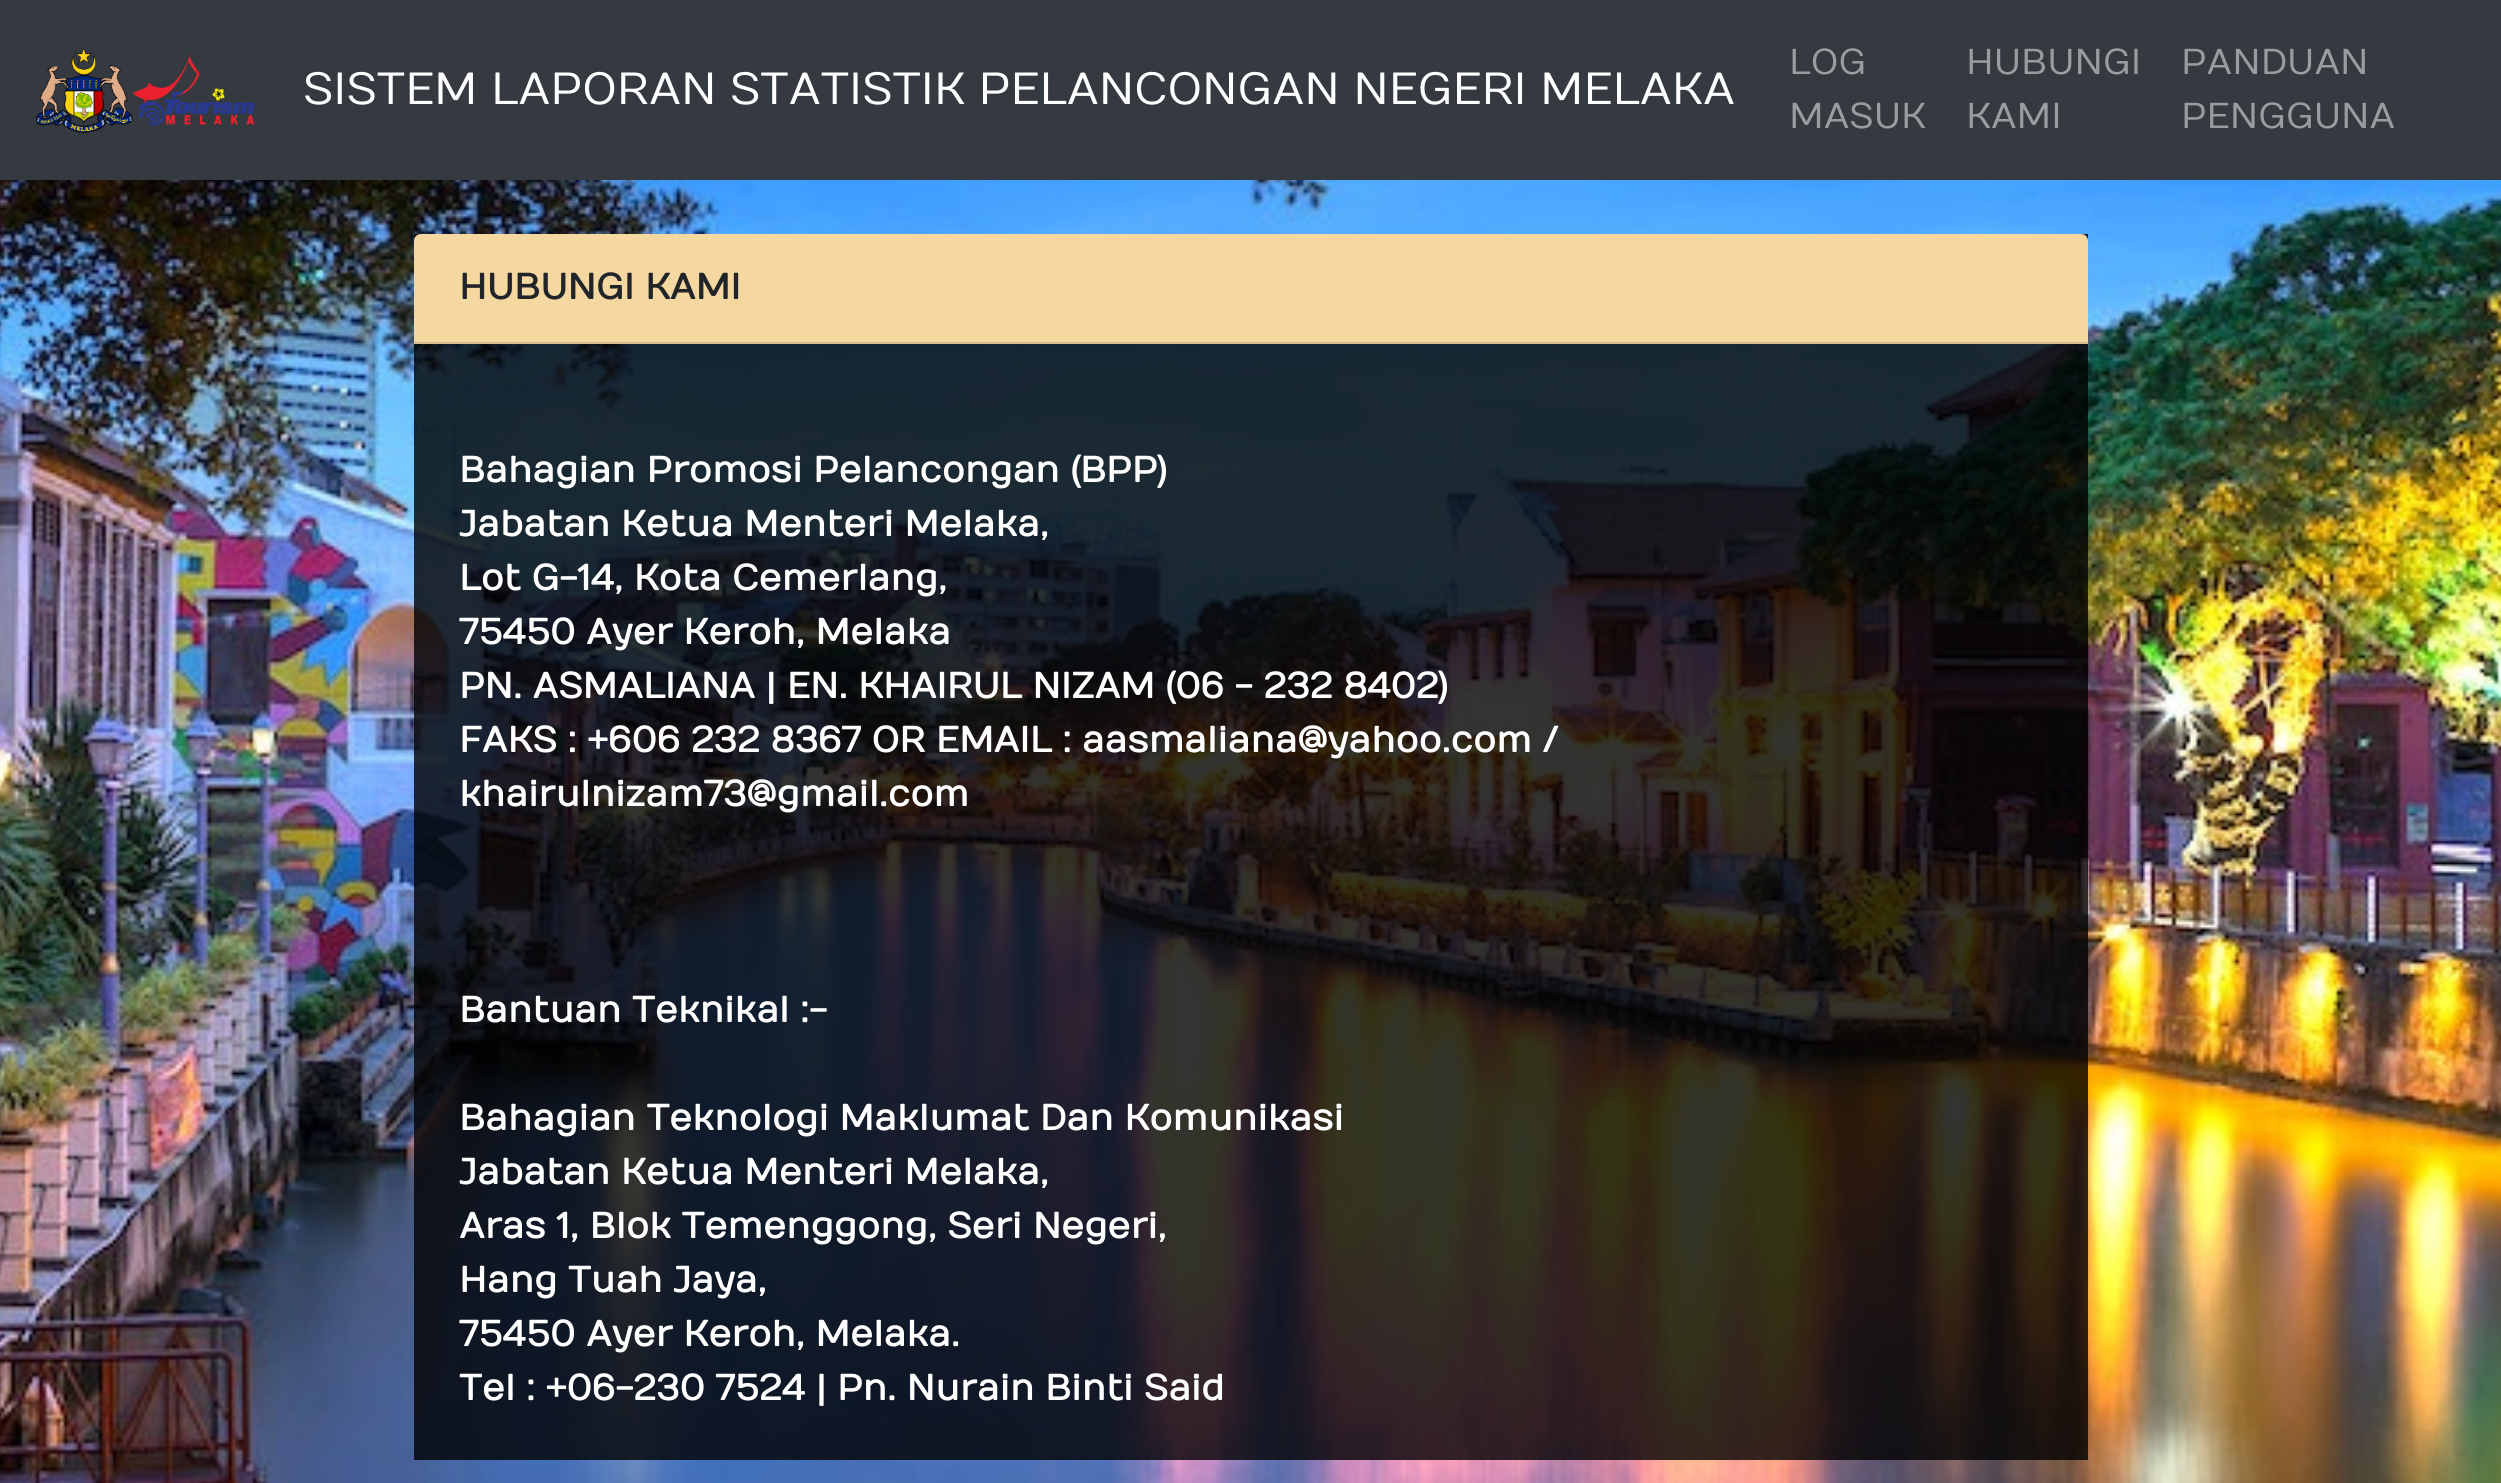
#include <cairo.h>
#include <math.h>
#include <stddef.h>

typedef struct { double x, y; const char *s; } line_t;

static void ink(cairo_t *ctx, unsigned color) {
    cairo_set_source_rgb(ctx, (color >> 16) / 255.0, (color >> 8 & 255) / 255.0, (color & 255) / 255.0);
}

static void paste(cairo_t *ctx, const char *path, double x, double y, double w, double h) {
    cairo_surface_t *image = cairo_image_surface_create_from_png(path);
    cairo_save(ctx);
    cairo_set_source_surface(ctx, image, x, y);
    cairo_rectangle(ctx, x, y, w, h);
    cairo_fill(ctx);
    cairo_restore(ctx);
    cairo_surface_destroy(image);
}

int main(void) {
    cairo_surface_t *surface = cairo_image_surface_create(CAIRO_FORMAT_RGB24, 2501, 1483);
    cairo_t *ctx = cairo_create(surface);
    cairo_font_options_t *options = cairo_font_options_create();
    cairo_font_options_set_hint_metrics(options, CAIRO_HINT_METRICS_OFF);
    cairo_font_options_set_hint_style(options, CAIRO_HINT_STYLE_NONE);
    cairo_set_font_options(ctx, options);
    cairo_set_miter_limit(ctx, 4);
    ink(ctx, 0xFFFFFF);
    cairo_paint(ctx);
    paste(ctx, "media/1.png", 0, 180, 2501, 1303);
    ink(ctx, 0x343A40);
    cairo_rectangle(ctx, 0, 0, 2501, 180);
    cairo_fill(ctx);
    paste(ctx, "media/2.png", 36, 47, 97, 86);
    paste(ctx, "media/3.png", 132, 54, 123, 72);
    cairo_select_font_face(ctx, "Numans", CAIRO_FONT_SLANT_NORMAL, CAIRO_FONT_WEIGHT_NORMAL);
    cairo_set_font_size(ctx, 45);
    ink(ctx, 0xFFFFFF);
    cairo_move_to(ctx, 303, 104);
    cairo_show_text(ctx, "SISTEM LAPORAN STATISTIK PELANCONGAN NEGERI MELAKA");
    cairo_set_font_size(ctx, 36);
    ink(ctx, 0x9A9DA0);
    {
        static const line_t items[] = {
            {1789, 74, "LOG"},
            {1789, 128, "MASUK"},
            {1966, 74, "HUBUNGI"},
            {1966, 128, "KAMI"},
            {2181, 74, "PANDUAN"},
            {2181, 128, "PENGGUNA"},
        };
        for (size_t i = 0; i < sizeof items / sizeof *items; i++) {
            cairo_move_to(ctx, items[i].x, items[i].y);
            cairo_show_text(ctx, items[i].s);
        }
    }
    cairo_set_source_rgba(ctx, 0, 0, 0, 0.8);
    cairo_rectangle(ctx, 414, 234, 1674, 1226);
    cairo_fill(ctx);
    ink(ctx, 0xF5D7A0);
    cairo_new_path(ctx);
    cairo_move_to(ctx, 421, 234);
    cairo_line_to(ctx, 2081, 234);
    cairo_curve_to(ctx, 2085, 234, 2088, 237, 2088, 241);
    cairo_line_to(ctx, 2088, 344);
    cairo_line_to(ctx, 414, 344);
    cairo_line_to(ctx, 414, 241);
    cairo_curve_to(ctx, 414, 237, 417, 234, 421, 234);
    cairo_close_path(ctx);
    cairo_fill(ctx);
    ink(ctx, 0xD6BC8C);
    cairo_rectangle(ctx, 414, 342, 1674, 2);
    cairo_fill(ctx);
    cairo_select_font_face(ctx, "Numans", CAIRO_FONT_SLANT_NORMAL, CAIRO_FONT_WEIGHT_BOLD);
    ink(ctx, 0x212529);
    cairo_move_to(ctx, 459, 299);
    cairo_show_text(ctx, "HUBUNGI KAMI");
    ink(ctx, 0xFFFFFF);
    {
        static const line_t items[] = {
            {459, 482, "Bahagian Promosi Pelancongan (BPP)"},
            {459, 536, "Jabatan Ketua Menteri Melaka,"},
            {459, 590, "Lot G-14, Kota Cemerlang,"},
            {459, 644, "75450 Ayer Keroh, Melaka"},
            {459, 698, "PN. ASMALIANA | EN. KHAIRUL NIZAM (06 - 232 8402)"},
            {459, 752, "FAKS : +606 232 8367 OR EMAIL : aasmaliana@yahoo.com /"},
            {459, 806, "khairulnizam73@gmail.com"},
            {459, 1022, "Bantuan Teknikal :-"},
            {459, 1130, "Bahagian Teknologi Maklumat Dan Komunikasi"},
            {459, 1184, "Jabatan Ketua Menteri Melaka,"},
            {459, 1238, "Aras 1, Blok Temenggong, Seri Negeri,"},
            {459, 1292, "Hang Tuah Jaya,"},
            {459, 1346, "75450 Ayer Keroh, Melaka."},
            {459, 1400, "Tel : +06-230 7524 | Pn. Nurain Binti Said"},
        };
        for (size_t i = 0; i < sizeof items / sizeof *items; i++) {
            cairo_move_to(ctx, items[i].x, items[i].y);
            cairo_show_text(ctx, items[i].s);
        }
    }
    cairo_surface_write_to_png(surface, "image.png");
    cairo_font_options_destroy(options);
    cairo_destroy(ctx);
    cairo_surface_destroy(surface);
    return 0;
}
